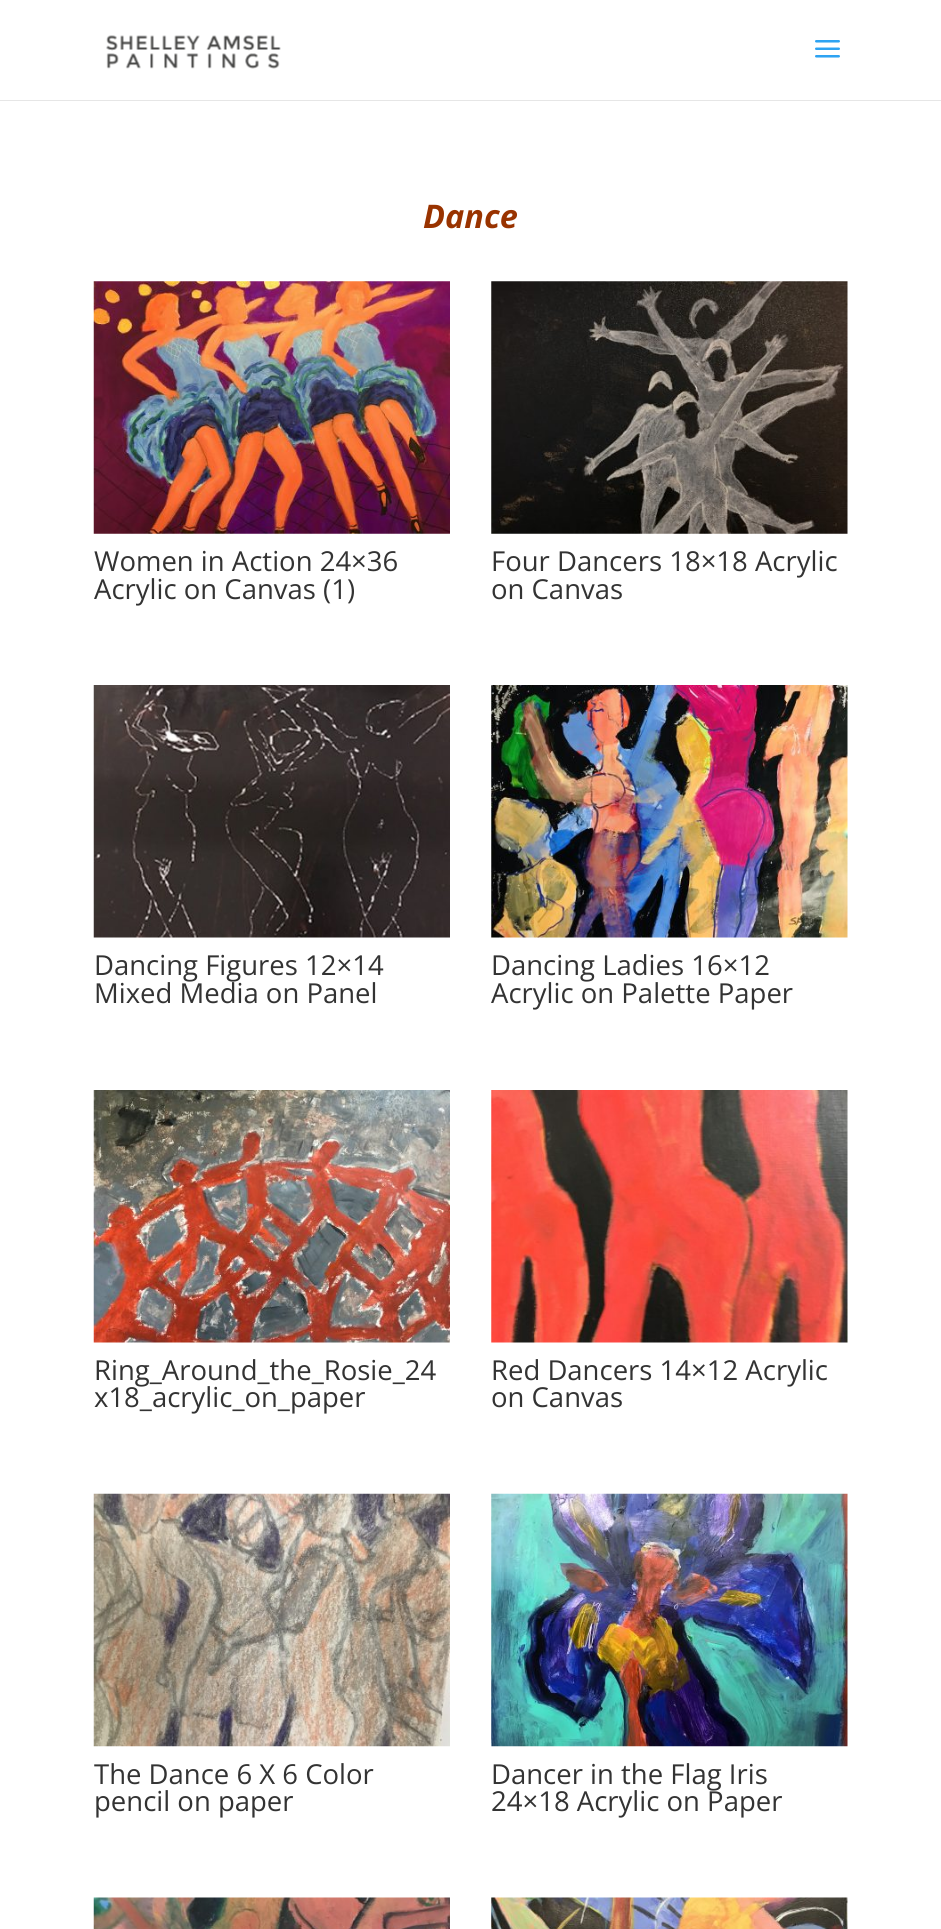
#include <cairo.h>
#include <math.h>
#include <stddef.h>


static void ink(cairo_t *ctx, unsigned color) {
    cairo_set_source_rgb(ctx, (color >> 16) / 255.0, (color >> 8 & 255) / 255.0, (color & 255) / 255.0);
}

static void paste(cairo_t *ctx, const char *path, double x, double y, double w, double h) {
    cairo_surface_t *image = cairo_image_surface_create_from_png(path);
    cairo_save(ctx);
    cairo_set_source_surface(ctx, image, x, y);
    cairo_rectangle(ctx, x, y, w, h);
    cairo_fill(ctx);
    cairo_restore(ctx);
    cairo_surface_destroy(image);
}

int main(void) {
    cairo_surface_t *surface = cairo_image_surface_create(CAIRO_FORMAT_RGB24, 941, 1929);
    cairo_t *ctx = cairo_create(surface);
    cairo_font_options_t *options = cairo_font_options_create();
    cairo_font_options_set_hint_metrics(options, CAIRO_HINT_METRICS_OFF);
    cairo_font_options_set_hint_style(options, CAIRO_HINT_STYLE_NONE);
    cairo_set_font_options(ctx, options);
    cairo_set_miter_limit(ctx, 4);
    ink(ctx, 0xFFFFFF);
    cairo_paint(ctx);
    ink(ctx, 0xE6E6E6);
    cairo_rectangle(ctx, 0, 100, 941, 1);
    cairo_fill(ctx);
    paste(ctx, "media/1.png", 106, 35, 175, 34);
    paste(ctx, "media/2.png", 815, 40, 25, 18);
    cairo_select_font_face(ctx, "Open Sans", CAIRO_FONT_SLANT_ITALIC, CAIRO_FONT_WEIGHT_BOLD);
    cairo_set_font_size(ctx, 32.5);
    ink(ctx, 0x993300);
    cairo_move_to(ctx, 423, 228);
    cairo_show_text(ctx, "Dance");
    paste(ctx, "media/3.png", 93, 281, 357, 253);
    cairo_select_font_face(ctx, "Open Sans", CAIRO_FONT_SLANT_NORMAL, CAIRO_FONT_WEIGHT_NORMAL);
    cairo_set_font_size(ctx, 27.5);
    ink(ctx, 0x333333);
    cairo_move_to(ctx, 94, 571);
    cairo_show_text(ctx, "Women in Action 24×36");
    cairo_move_to(ctx, 94, 599);
    cairo_show_text(ctx, "Acrylic on Canvas (1)");
    paste(ctx, "media/4.png", 491, 281, 357, 253);
    cairo_move_to(ctx, 491, 571);
    cairo_show_text(ctx, "Four Dancers 18×18 Acrylic");
    cairo_move_to(ctx, 491, 599);
    cairo_show_text(ctx, "on Canvas");
    paste(ctx, "media/5.png", 93, 685, 357, 253);
    cairo_move_to(ctx, 94, 975);
    cairo_show_text(ctx, "Dancing Figures 12×14");
    cairo_move_to(ctx, 94, 1003);
    cairo_show_text(ctx, "Mixed Media on Panel");
    paste(ctx, "media/6.png", 491, 685, 357, 253);
    cairo_move_to(ctx, 491, 975);
    cairo_show_text(ctx, "Dancing Ladies 16×12");
    cairo_move_to(ctx, 491, 1003);
    cairo_show_text(ctx, "Acrylic on Palette Paper");
    paste(ctx, "media/7.png", 93, 1090, 357, 253);
    cairo_move_to(ctx, 94, 1380);
    cairo_show_text(ctx, "Ring_Around_the_Rosie_24");
    cairo_move_to(ctx, 94, 1407);
    cairo_show_text(ctx, "x18_acrylic_on_paper");
    paste(ctx, "media/8.png", 491, 1090, 357, 253);
    cairo_move_to(ctx, 491, 1380);
    cairo_show_text(ctx, "Red Dancers 14×12 Acrylic");
    cairo_move_to(ctx, 491, 1407);
    cairo_show_text(ctx, "on Canvas");
    paste(ctx, "media/9.png", 93, 1493, 357, 254);
    cairo_move_to(ctx, 94, 1784);
    cairo_show_text(ctx, "The Dance 6 X 6 Color");
    cairo_move_to(ctx, 94, 1811);
    cairo_show_text(ctx, "pencil on paper");
    paste(ctx, "media/10.png", 491, 1493, 357, 254);
    cairo_move_to(ctx, 491, 1784);
    cairo_show_text(ctx, "Dancer in the Flag Iris");
    cairo_move_to(ctx, 491, 1811);
    cairo_show_text(ctx, "24×18 Acrylic on Paper");
    paste(ctx, "media/11.png", 93, 1897, 357, 32);
    paste(ctx, "media/12.png", 491, 1897, 357, 32);
    cairo_surface_write_to_png(surface, "image.png");
    cairo_font_options_destroy(options);
    cairo_destroy(ctx);
    cairo_surface_destroy(surface);
    return 0;
}
